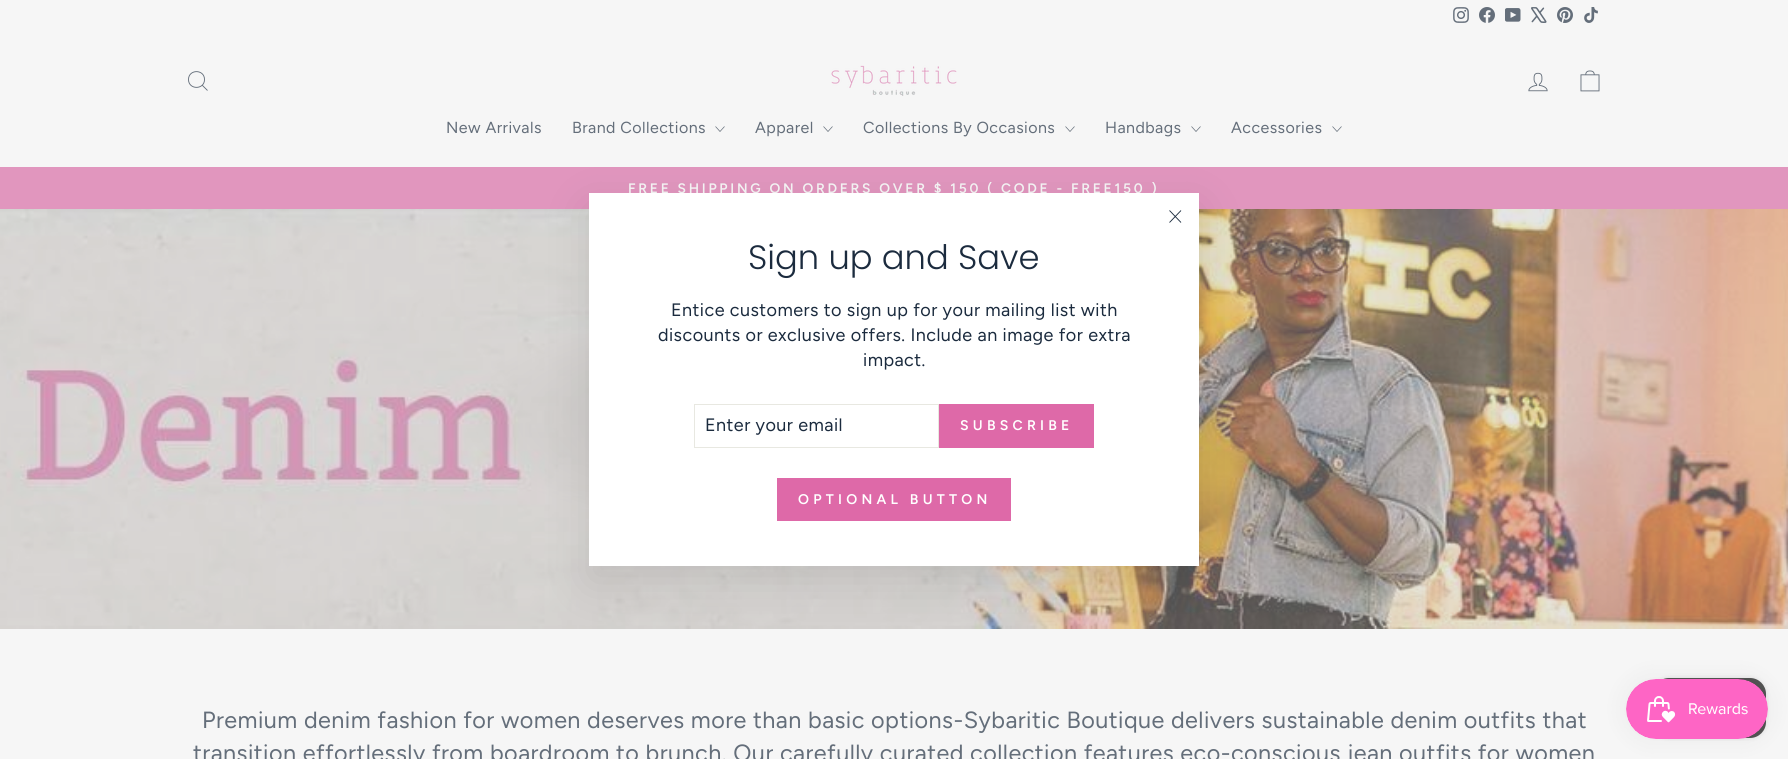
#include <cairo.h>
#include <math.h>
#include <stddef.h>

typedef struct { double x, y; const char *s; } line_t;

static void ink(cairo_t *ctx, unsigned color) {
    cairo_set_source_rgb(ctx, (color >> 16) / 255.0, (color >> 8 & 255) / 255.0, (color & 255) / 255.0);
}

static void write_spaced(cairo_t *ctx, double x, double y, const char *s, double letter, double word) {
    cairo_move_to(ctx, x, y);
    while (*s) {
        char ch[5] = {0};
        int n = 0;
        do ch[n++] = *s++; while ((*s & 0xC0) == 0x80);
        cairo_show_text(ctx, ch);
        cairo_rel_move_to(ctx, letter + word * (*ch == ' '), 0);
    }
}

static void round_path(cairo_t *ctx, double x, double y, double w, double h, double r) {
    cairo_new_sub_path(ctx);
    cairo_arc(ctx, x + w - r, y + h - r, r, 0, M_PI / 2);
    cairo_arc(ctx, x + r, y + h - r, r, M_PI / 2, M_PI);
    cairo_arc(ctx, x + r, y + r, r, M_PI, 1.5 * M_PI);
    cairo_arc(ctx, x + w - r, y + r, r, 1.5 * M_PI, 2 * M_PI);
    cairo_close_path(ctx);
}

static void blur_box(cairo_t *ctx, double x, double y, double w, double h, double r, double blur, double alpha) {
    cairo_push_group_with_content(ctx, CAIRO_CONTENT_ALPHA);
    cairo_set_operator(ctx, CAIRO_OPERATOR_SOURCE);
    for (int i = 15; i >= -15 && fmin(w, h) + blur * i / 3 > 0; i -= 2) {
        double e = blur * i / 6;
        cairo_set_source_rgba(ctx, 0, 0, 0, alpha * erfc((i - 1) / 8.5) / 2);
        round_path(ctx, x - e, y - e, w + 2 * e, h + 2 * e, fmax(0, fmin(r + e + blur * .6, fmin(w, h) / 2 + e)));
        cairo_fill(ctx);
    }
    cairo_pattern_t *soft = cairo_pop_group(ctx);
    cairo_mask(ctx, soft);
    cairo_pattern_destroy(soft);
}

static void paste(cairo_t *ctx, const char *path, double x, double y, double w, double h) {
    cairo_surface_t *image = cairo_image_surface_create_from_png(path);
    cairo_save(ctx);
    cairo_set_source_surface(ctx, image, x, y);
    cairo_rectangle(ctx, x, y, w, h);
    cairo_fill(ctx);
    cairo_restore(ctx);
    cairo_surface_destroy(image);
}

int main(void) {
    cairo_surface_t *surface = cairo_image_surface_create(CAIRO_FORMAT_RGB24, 1788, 759);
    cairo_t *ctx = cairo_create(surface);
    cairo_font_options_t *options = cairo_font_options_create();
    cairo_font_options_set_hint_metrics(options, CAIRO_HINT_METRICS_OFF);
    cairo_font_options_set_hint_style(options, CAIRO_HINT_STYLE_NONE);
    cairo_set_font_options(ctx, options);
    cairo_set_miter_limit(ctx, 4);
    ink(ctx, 0xF6F6F6);
    cairo_paint(ctx);
    paste(ctx, "media/1.png", 1453, 7, 16, 16);
    paste(ctx, "media/2.png", 1479, 7, 16, 16);
    paste(ctx, "media/3.png", 1505, 8, 16, 14);
    paste(ctx, "media/4.png", 1531, 7, 16, 16);
    paste(ctx, "media/5.png", 1557, 7, 16, 16);
    paste(ctx, "media/6.png", 1584, 7, 14, 16);
    cairo_new_path(ctx);
    cairo_move_to(ctx, 204.5, 79.5);
    cairo_curve_to(ctx, 204.5, 90, 188.5, 90, 188.5, 79.5);
    cairo_curve_to(ctx, 188.5, 69, 204.5, 69, 204.5, 79.5);
    cairo_close_path(ctx);
    cairo_move_to(ctx, 207.5, 90.5);
    cairo_line_to(ctx, 202.5, 85.5);
    ink(ctx, 0x646E7A);
    cairo_set_line_width(ctx, 0.9);
    cairo_stroke(ctx);
    paste(ctx, "media/7.png", 831, 65, 126, 31);
    paste(ctx, "media/8.png", 1528, 72, 20, 20);
    paste(ctx, "media/9.png", 1580, 70, 20, 22);
    cairo_select_font_face(ctx, "Figtree", CAIRO_FONT_SLANT_NORMAL, CAIRO_FONT_WEIGHT_NORMAL);
    cairo_set_font_size(ctx, 16);
    write_spaced(ctx, 446, 133, "New Arrivals", 0.45, 0);
    write_spaced(ctx, 572, 133, "Brand Collections", 0.45, 0);
    cairo_new_path(ctx);
    cairo_move_to(ctx, 715.5, 126.5);
    cairo_line_to(ctx, 720, 131.5);
    cairo_line_to(ctx, 724.5, 126.5);
    cairo_set_line_width(ctx, 0.7);
    cairo_stroke(ctx);
    write_spaced(ctx, 755, 133, "Apparel", 0.45, 0);
    cairo_new_path(ctx);
    cairo_move_to(ctx, 823.5, 126.5);
    cairo_line_to(ctx, 828, 131.5);
    cairo_line_to(ctx, 832.5, 126.5);
    cairo_stroke(ctx);
    write_spaced(ctx, 863, 133, "Collections By Occasions", 0.45, 0);
    cairo_new_path(ctx);
    cairo_move_to(ctx, 1065.5, 126.5);
    cairo_line_to(ctx, 1070, 131.5);
    cairo_line_to(ctx, 1074.5, 126.5);
    cairo_stroke(ctx);
    write_spaced(ctx, 1105, 133, "Handbags", 0.45, 0);
    cairo_new_path(ctx);
    cairo_move_to(ctx, 1191.5, 126.5);
    cairo_line_to(ctx, 1196, 131.5);
    cairo_line_to(ctx, 1200.5, 126.5);
    cairo_stroke(ctx);
    write_spaced(ctx, 1231, 133, "Accessories", 0.45, 0);
    cairo_new_path(ctx);
    cairo_move_to(ctx, 1332.5, 126.5);
    cairo_line_to(ctx, 1337, 131.5);
    cairo_line_to(ctx, 1341.5, 126.5);
    cairo_stroke(ctx);
    ink(ctx, 0xE196BE);
    cairo_rectangle(ctx, 0, 167, 1788, 42);
    cairo_fill(ctx);
    cairo_select_font_face(ctx, "Figtree SemiBold", CAIRO_FONT_SLANT_NORMAL, CAIRO_FONT_WEIGHT_NORMAL);
    cairo_set_font_size(ctx, 13.75);
    ink(ctx, 0xF6F6F6);
    write_spaced(ctx, 628, 193, "FREE SHIPPING ON ORDERS OVER $ 150 ( CODE - FREE150 )", 2.75, 0);
    paste(ctx, "media/10.png", 0, 209, 1788, 420);
    ink(ctx, 0x000000);
    blur_box(ctx, 589, 208, 610, 373, 0, 22.5, 0.1);
    ink(ctx, 0xFFFFFF);
    cairo_rectangle(ctx, 589, 193, 610, 373);
    cairo_fill(ctx);
    cairo_new_path(ctx);
    cairo_move_to(ctx, 1169.5, 210.5);
    cairo_line_to(ctx, 1181, 222.5);
    cairo_move_to(ctx, 1181, 210.5);
    cairo_line_to(ctx, 1169.5, 222.5);
    ink(ctx, 0x1B2B3E);
    cairo_set_line_width(ctx, 0.9);
    cairo_stroke(ctx);
    cairo_select_font_face(ctx, "Poppins Light", CAIRO_FONT_SLANT_NORMAL, CAIRO_FONT_WEIGHT_NORMAL);
    cairo_set_font_size(ctx, 33.75);
    cairo_move_to(ctx, 748, 269);
    cairo_show_text(ctx, "Sign up and Save");
    cairo_select_font_face(ctx, "Figtree", CAIRO_FONT_SLANT_NORMAL, CAIRO_FONT_WEIGHT_NORMAL);
    cairo_set_font_size(ctx, 18);
    {
        static const line_t items[] = {
            {671, 316, "Entice customers to sign up for your mailing list with"},
            {658, 341, "discounts or exclusive offers. Include an image for extra"},
            {863, 366, "impact."},
        };
        for (size_t i = 0; i < sizeof items / sizeof *items; i++) {
            write_spaced(ctx, items[i].x, items[i].y, items[i].s, 0.45, 0);
        }
    }
    cairo_rectangle(ctx, 694.5, 404.5, 244, 43);
    ink(ctx, 0xE8E8E1);
    cairo_set_line_width(ctx, 1);
    cairo_stroke(ctx);
    ink(ctx, 0x1B2B3E);
    write_spaced(ctx, 705, 431, "Enter your email", 0.45, 0);
    ink(ctx, 0xDE69A8);
    cairo_rectangle(ctx, 939, 404, 155, 44);
    cairo_fill(ctx);
    cairo_select_font_face(ctx, "Figtree SemiBold", CAIRO_FONT_SLANT_NORMAL, CAIRO_FONT_WEIGHT_NORMAL);
    cairo_set_font_size(ctx, 14);
    ink(ctx, 0xFFFFFF);
    write_spaced(ctx, 960, 430, "SUBSCRIBE", 4.25, 0);
    ink(ctx, 0xDE69A8);
    cairo_rectangle(ctx, 777, 478, 234, 43);
    cairo_fill(ctx);
    ink(ctx, 0xFFFFFF);
    write_spaced(ctx, 798, 504, "OPTIONAL BUTTON", 4.25, 0);
    cairo_select_font_face(ctx, "Figtree", CAIRO_FONT_SLANT_NORMAL, CAIRO_FONT_WEIGHT_NORMAL);
    cairo_set_font_size(ctx, 23.4);
    ink(ctx, 0x646E7A);
    write_spaced(ctx, 202, 728, "Premium denim fashion for women deserves more than basic options-Sybaritic Boutique delivers sustainable denim outfits that", 0.45, 0);
    write_spaced(ctx, 193, 761, "transition effortlessly from boardroom to brunch. Our carefully curated collection features eco-conscious jean outfits for women", 0.45, 0);
    ink(ctx, 0x535353);
    blur_box(ctx, 1653, 678, 113, 60, 16, 2.5, 0.15);
    ink(ctx, 0x535353);
    round_path(ctx, 1653, 678, 113, 60, 16);
    cairo_fill(ctx);
    ink(ctx, 0x000000);
    blur_box(ctx, 1626, 679, 142, 60, 30, 12.5, 0.05);
    paste(ctx, "media/11.png", 1626, 679, 142, 60);
    cairo_surface_write_to_png(surface, "image.png");
    cairo_font_options_destroy(options);
    cairo_destroy(ctx);
    cairo_surface_destroy(surface);
    return 0;
}
